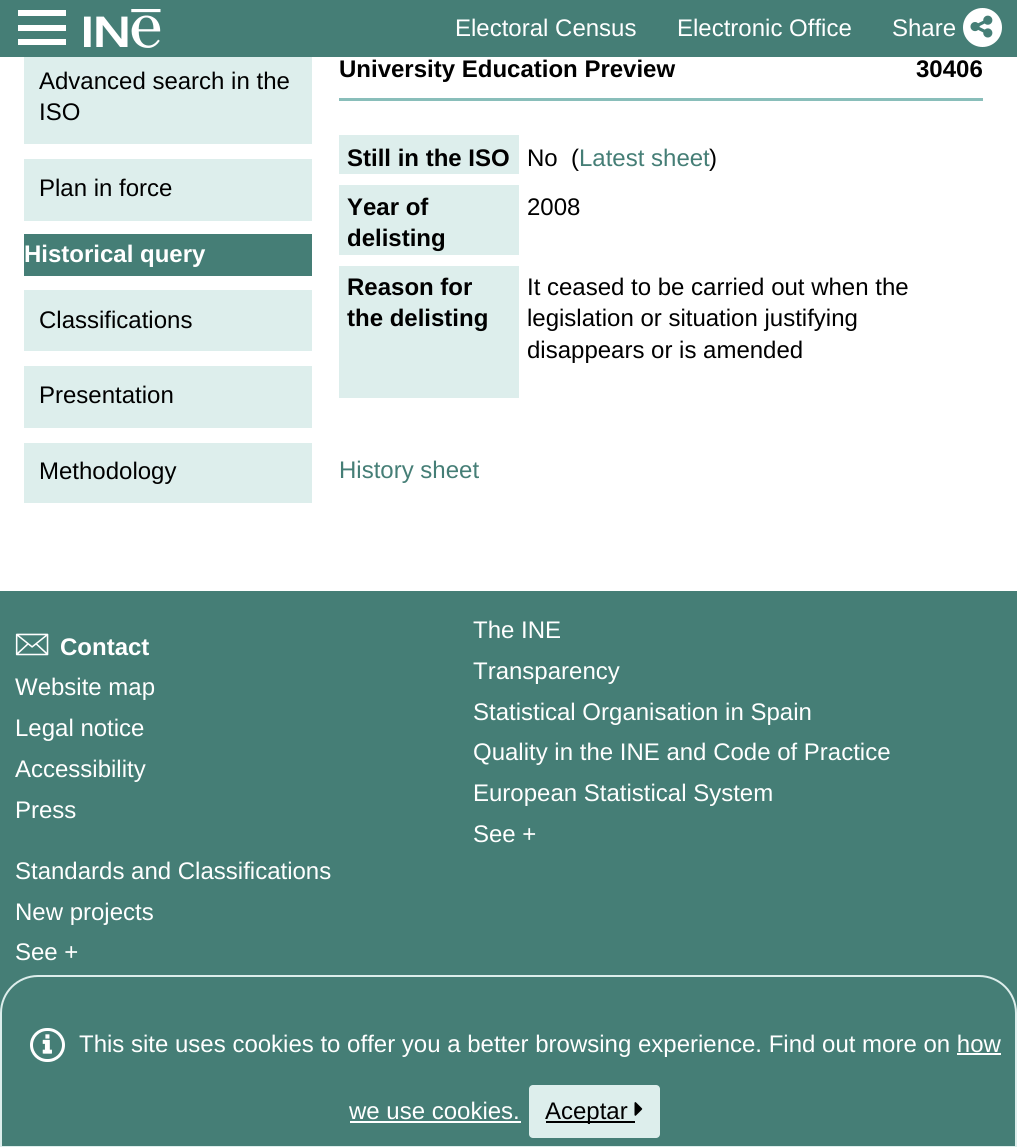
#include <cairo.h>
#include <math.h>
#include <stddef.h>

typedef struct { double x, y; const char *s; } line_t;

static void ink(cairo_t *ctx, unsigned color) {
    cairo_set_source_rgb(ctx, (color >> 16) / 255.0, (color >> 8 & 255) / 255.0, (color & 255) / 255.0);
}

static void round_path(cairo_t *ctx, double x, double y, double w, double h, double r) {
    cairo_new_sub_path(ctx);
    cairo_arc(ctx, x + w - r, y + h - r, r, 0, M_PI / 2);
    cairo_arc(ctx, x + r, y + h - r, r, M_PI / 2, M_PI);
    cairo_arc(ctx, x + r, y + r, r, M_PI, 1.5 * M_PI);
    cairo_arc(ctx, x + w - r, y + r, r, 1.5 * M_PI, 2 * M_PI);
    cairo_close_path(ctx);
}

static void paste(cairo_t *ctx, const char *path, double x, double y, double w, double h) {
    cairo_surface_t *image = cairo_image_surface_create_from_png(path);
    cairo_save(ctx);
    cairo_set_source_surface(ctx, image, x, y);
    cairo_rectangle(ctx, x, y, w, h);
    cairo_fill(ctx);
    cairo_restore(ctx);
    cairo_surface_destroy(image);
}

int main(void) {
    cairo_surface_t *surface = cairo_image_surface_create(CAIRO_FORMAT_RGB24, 1017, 1147);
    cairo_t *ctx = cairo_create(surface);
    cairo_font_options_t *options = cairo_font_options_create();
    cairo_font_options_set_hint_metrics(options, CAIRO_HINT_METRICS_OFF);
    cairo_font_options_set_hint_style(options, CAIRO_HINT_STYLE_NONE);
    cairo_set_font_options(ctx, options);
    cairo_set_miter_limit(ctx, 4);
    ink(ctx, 0xFFFFFF);
    cairo_paint(ctx);
    ink(ctx, 0x457E76);
    cairo_rectangle(ctx, 0, 0, 1017, 57);
    cairo_fill(ctx);
    ink(ctx, 0xFFFFFF);
    cairo_new_path(ctx);
    cairo_move_to(ctx, 66, 15);
    cairo_line_to(ctx, 66, 10);
    cairo_line_to(ctx, 18, 10);
    cairo_line_to(ctx, 18, 16);
    cairo_line_to(ctx, 66, 16);
    cairo_close_path(ctx);
    cairo_move_to(ctx, 66, 30);
    cairo_line_to(ctx, 66, 25);
    cairo_line_to(ctx, 18, 25);
    cairo_line_to(ctx, 18, 31);
    cairo_line_to(ctx, 66, 31);
    cairo_close_path(ctx);
    cairo_move_to(ctx, 66, 44);
    cairo_line_to(ctx, 66, 39);
    cairo_line_to(ctx, 18, 39);
    cairo_line_to(ctx, 18, 45);
    cairo_line_to(ctx, 66, 45);
    cairo_close_path(ctx);
    cairo_fill(ctx);
    paste(ctx, "media/1.png", 84, 9, 77, 39);
    cairo_select_font_face(ctx, "Liberation Sans", CAIRO_FONT_SLANT_NORMAL, CAIRO_FONT_WEIGHT_NORMAL);
    cairo_set_font_size(ctx, 24);
    {
        static const line_t items[] = {
            {455, 36, "Electoral Census"},
            {677, 36, "Electronic Office"},
            {892, 36, "Share"},
        };
        for (size_t i = 0; i < sizeof items / sizeof *items; i++) {
            cairo_move_to(ctx, items[i].x, items[i].y);
            cairo_show_text(ctx, items[i].s);
        }
    }
    cairo_new_path(ctx);
    cairo_arc(ctx, 982.5, 27.5, 19.5, 0, 2 * M_PI);
    cairo_fill(ctx);
    paste(ctx, "media/2.png", 970, 15, 23, 23);
    ink(ctx, 0xDDEEEC);
    cairo_rectangle(ctx, 24, 57, 288, 87);
    cairo_fill(ctx);
    ink(ctx, 0x000000);
    cairo_move_to(ctx, 39, 89);
    cairo_show_text(ctx, "Advanced search in the");
    cairo_move_to(ctx, 39, 120);
    cairo_show_text(ctx, "ISO");
    ink(ctx, 0xDDEEEC);
    cairo_rectangle(ctx, 24, 159, 288, 62);
    cairo_fill(ctx);
    ink(ctx, 0x000000);
    cairo_move_to(ctx, 39, 196);
    cairo_show_text(ctx, "Plan in force");
    ink(ctx, 0x457E76);
    cairo_rectangle(ctx, 24, 234, 288, 42);
    cairo_fill(ctx);
    cairo_select_font_face(ctx, "Liberation Sans", CAIRO_FONT_SLANT_NORMAL, CAIRO_FONT_WEIGHT_BOLD);
    ink(ctx, 0xFFFFFF);
    cairo_move_to(ctx, 24, 262);
    cairo_show_text(ctx, "Historical query");
    ink(ctx, 0xDDEEEC);
    cairo_rectangle(ctx, 24, 290, 288, 61);
    cairo_fill(ctx);
    cairo_select_font_face(ctx, "Liberation Sans", CAIRO_FONT_SLANT_NORMAL, CAIRO_FONT_WEIGHT_NORMAL);
    ink(ctx, 0x000000);
    cairo_move_to(ctx, 39, 328);
    cairo_show_text(ctx, "Classifications");
    ink(ctx, 0xDDEEEC);
    cairo_rectangle(ctx, 24, 366, 288, 62);
    cairo_fill(ctx);
    ink(ctx, 0x000000);
    cairo_move_to(ctx, 39, 403);
    cairo_show_text(ctx, "Presentation");
    ink(ctx, 0xDDEEEC);
    cairo_rectangle(ctx, 24, 443, 288, 60);
    cairo_fill(ctx);
    ink(ctx, 0x000000);
    cairo_move_to(ctx, 39, 479);
    cairo_show_text(ctx, "Methodology");
    cairo_select_font_face(ctx, "Liberation Sans", CAIRO_FONT_SLANT_NORMAL, CAIRO_FONT_WEIGHT_BOLD);
    cairo_move_to(ctx, 339, 77);
    cairo_show_text(ctx, "University Education Preview");
    cairo_move_to(ctx, 916, 77);
    cairo_show_text(ctx, "30406");
    ink(ctx, 0x89BEBA);
    cairo_rectangle(ctx, 339, 98, 644, 3);
    cairo_fill(ctx);
    ink(ctx, 0xDDEEEC);
    cairo_rectangle(ctx, 339, 135, 180, 39);
    cairo_fill(ctx);
    ink(ctx, 0x000000);
    cairo_move_to(ctx, 347, 166);
    cairo_show_text(ctx, "Still in the ISO");
    cairo_select_font_face(ctx, "Liberation Sans", CAIRO_FONT_SLANT_NORMAL, CAIRO_FONT_WEIGHT_NORMAL);
    cairo_move_to(ctx, 527, 166);
    cairo_show_text(ctx, "No");
    cairo_move_to(ctx, 571, 166);
    cairo_show_text(ctx, "(");
    ink(ctx, 0x457E76);
    cairo_move_to(ctx, 579, 166);
    cairo_show_text(ctx, "Latest sheet");
    ink(ctx, 0x000000);
    cairo_move_to(ctx, 709, 166);
    cairo_show_text(ctx, ")");
    ink(ctx, 0xDDEEEC);
    cairo_rectangle(ctx, 339, 185, 180, 70);
    cairo_fill(ctx);
    cairo_select_font_face(ctx, "Liberation Sans", CAIRO_FONT_SLANT_NORMAL, CAIRO_FONT_WEIGHT_BOLD);
    ink(ctx, 0x000000);
    cairo_move_to(ctx, 347, 215);
    cairo_show_text(ctx, "Year of");
    cairo_move_to(ctx, 347, 246);
    cairo_show_text(ctx, "delisting");
    cairo_select_font_face(ctx, "Liberation Sans", CAIRO_FONT_SLANT_NORMAL, CAIRO_FONT_WEIGHT_NORMAL);
    cairo_move_to(ctx, 527, 215);
    cairo_show_text(ctx, "2008");
    ink(ctx, 0xDDEEEC);
    cairo_rectangle(ctx, 339, 266, 180, 132);
    cairo_fill(ctx);
    cairo_select_font_face(ctx, "Liberation Sans", CAIRO_FONT_SLANT_NORMAL, CAIRO_FONT_WEIGHT_BOLD);
    ink(ctx, 0x000000);
    cairo_move_to(ctx, 347, 295);
    cairo_show_text(ctx, "Reason for");
    cairo_move_to(ctx, 347, 326);
    cairo_show_text(ctx, "the delisting");
    cairo_select_font_face(ctx, "Liberation Sans", CAIRO_FONT_SLANT_NORMAL, CAIRO_FONT_WEIGHT_NORMAL);
    {
        static const line_t items[] = {
            {527, 295, "It ceased to be carried out when the"},
            {527, 326, "legislation or situation justifying"},
            {527, 358, "disappears or is amended"},
        };
        for (size_t i = 0; i < sizeof items / sizeof *items; i++) {
            cairo_move_to(ctx, items[i].x, items[i].y);
            cairo_show_text(ctx, items[i].s);
        }
    }
    ink(ctx, 0x457E76);
    cairo_move_to(ctx, 339, 478);
    cairo_show_text(ctx, "History sheet");
    cairo_rectangle(ctx, 0, 591, 1017, 422);
    cairo_fill(ctx);
    paste(ctx, "media/3.png", 15, 633, 34, 23);
    cairo_select_font_face(ctx, "Liberation Sans", CAIRO_FONT_SLANT_NORMAL, CAIRO_FONT_WEIGHT_BOLD);
    ink(ctx, 0xFFFFFF);
    cairo_move_to(ctx, 60, 655);
    cairo_show_text(ctx, "Contact");
    cairo_select_font_face(ctx, "Liberation Sans", CAIRO_FONT_SLANT_NORMAL, CAIRO_FONT_WEIGHT_NORMAL);
    {
        static const line_t items[] = {
            {15, 695, "Website map"},
            {15, 736, "Legal notice"},
            {15, 777, "Accessibility"},
            {15, 818, "Press"},
            {15, 879, "Standards and Classifications"},
            {15, 920, "New projects"},
            {15, 960, "See +"},
            {473, 638, "The INE"},
            {473, 679, "Transparency"},
            {473, 720, "Statistical Organisation in Spain"},
            {473, 760, "Quality in the INE and Code of Practice"},
            {473, 801, "European Statistical System"},
            {473, 842, "See +"},
        };
        for (size_t i = 0; i < sizeof items / sizeof *items; i++) {
            cairo_move_to(ctx, items[i].x, items[i].y);
            cairo_show_text(ctx, items[i].s);
        }
    }
    ink(ctx, 0x457E76);
    cairo_new_path(ctx);
    cairo_move_to(ctx, 38, 976);
    cairo_line_to(ctx, 979, 976);
    cairo_curve_to(ctx, 999.5, 976, 1016, 992.5, 1016, 1013);
    cairo_line_to(ctx, 1016, 1147);
    cairo_line_to(ctx, 1, 1147);
    cairo_line_to(ctx, 1, 1013);
    cairo_curve_to(ctx, 1, 992.5, 17.5, 976, 38, 976);
    cairo_close_path(ctx);
    cairo_fill_preserve(ctx);
    ink(ctx, 0xDDEEEC);
    cairo_stroke(ctx);
    round_path(ctx, 31.5, 1029.5, 32, 31, 15.5);
    ink(ctx, 0xFFFFFF);
    cairo_set_line_width(ctx, 3);
    cairo_stroke(ctx);
    paste(ctx, "media/4.png", 42, 1034, 10, 20);
    cairo_move_to(ctx, 79, 1052);
    cairo_show_text(ctx, "This site uses cookies to offer you a better browsing experience. Find out more on how");
    cairo_move_to(ctx, 349, 1119);
    cairo_show_text(ctx, "we use cookies.");
    cairo_rectangle(ctx, 957, 1053, 44, 2);
    cairo_fill(ctx);
    cairo_rectangle(ctx, 350, 1121, 171, 2);
    cairo_fill(ctx);
    ink(ctx, 0xDDEEEC);
    round_path(ctx, 528, 1084, 133, 55, 5);
    cairo_fill_preserve(ctx);
    ink(ctx, 0x457E76);
    cairo_set_line_width(ctx, 2);
    cairo_stroke(ctx);
    ink(ctx, 0x000000);
    cairo_rectangle(ctx, 546, 1121, 89, 2);
    cairo_fill(ctx);
    cairo_move_to(ctx, 545, 1119);
    cairo_show_text(ctx, "Aceptar");
    paste(ctx, "media/5.png", 634, 1102, 9, 14);
    cairo_surface_write_to_png(surface, "image.png");
    cairo_font_options_destroy(options);
    cairo_destroy(ctx);
    cairo_surface_destroy(surface);
    return 0;
}
